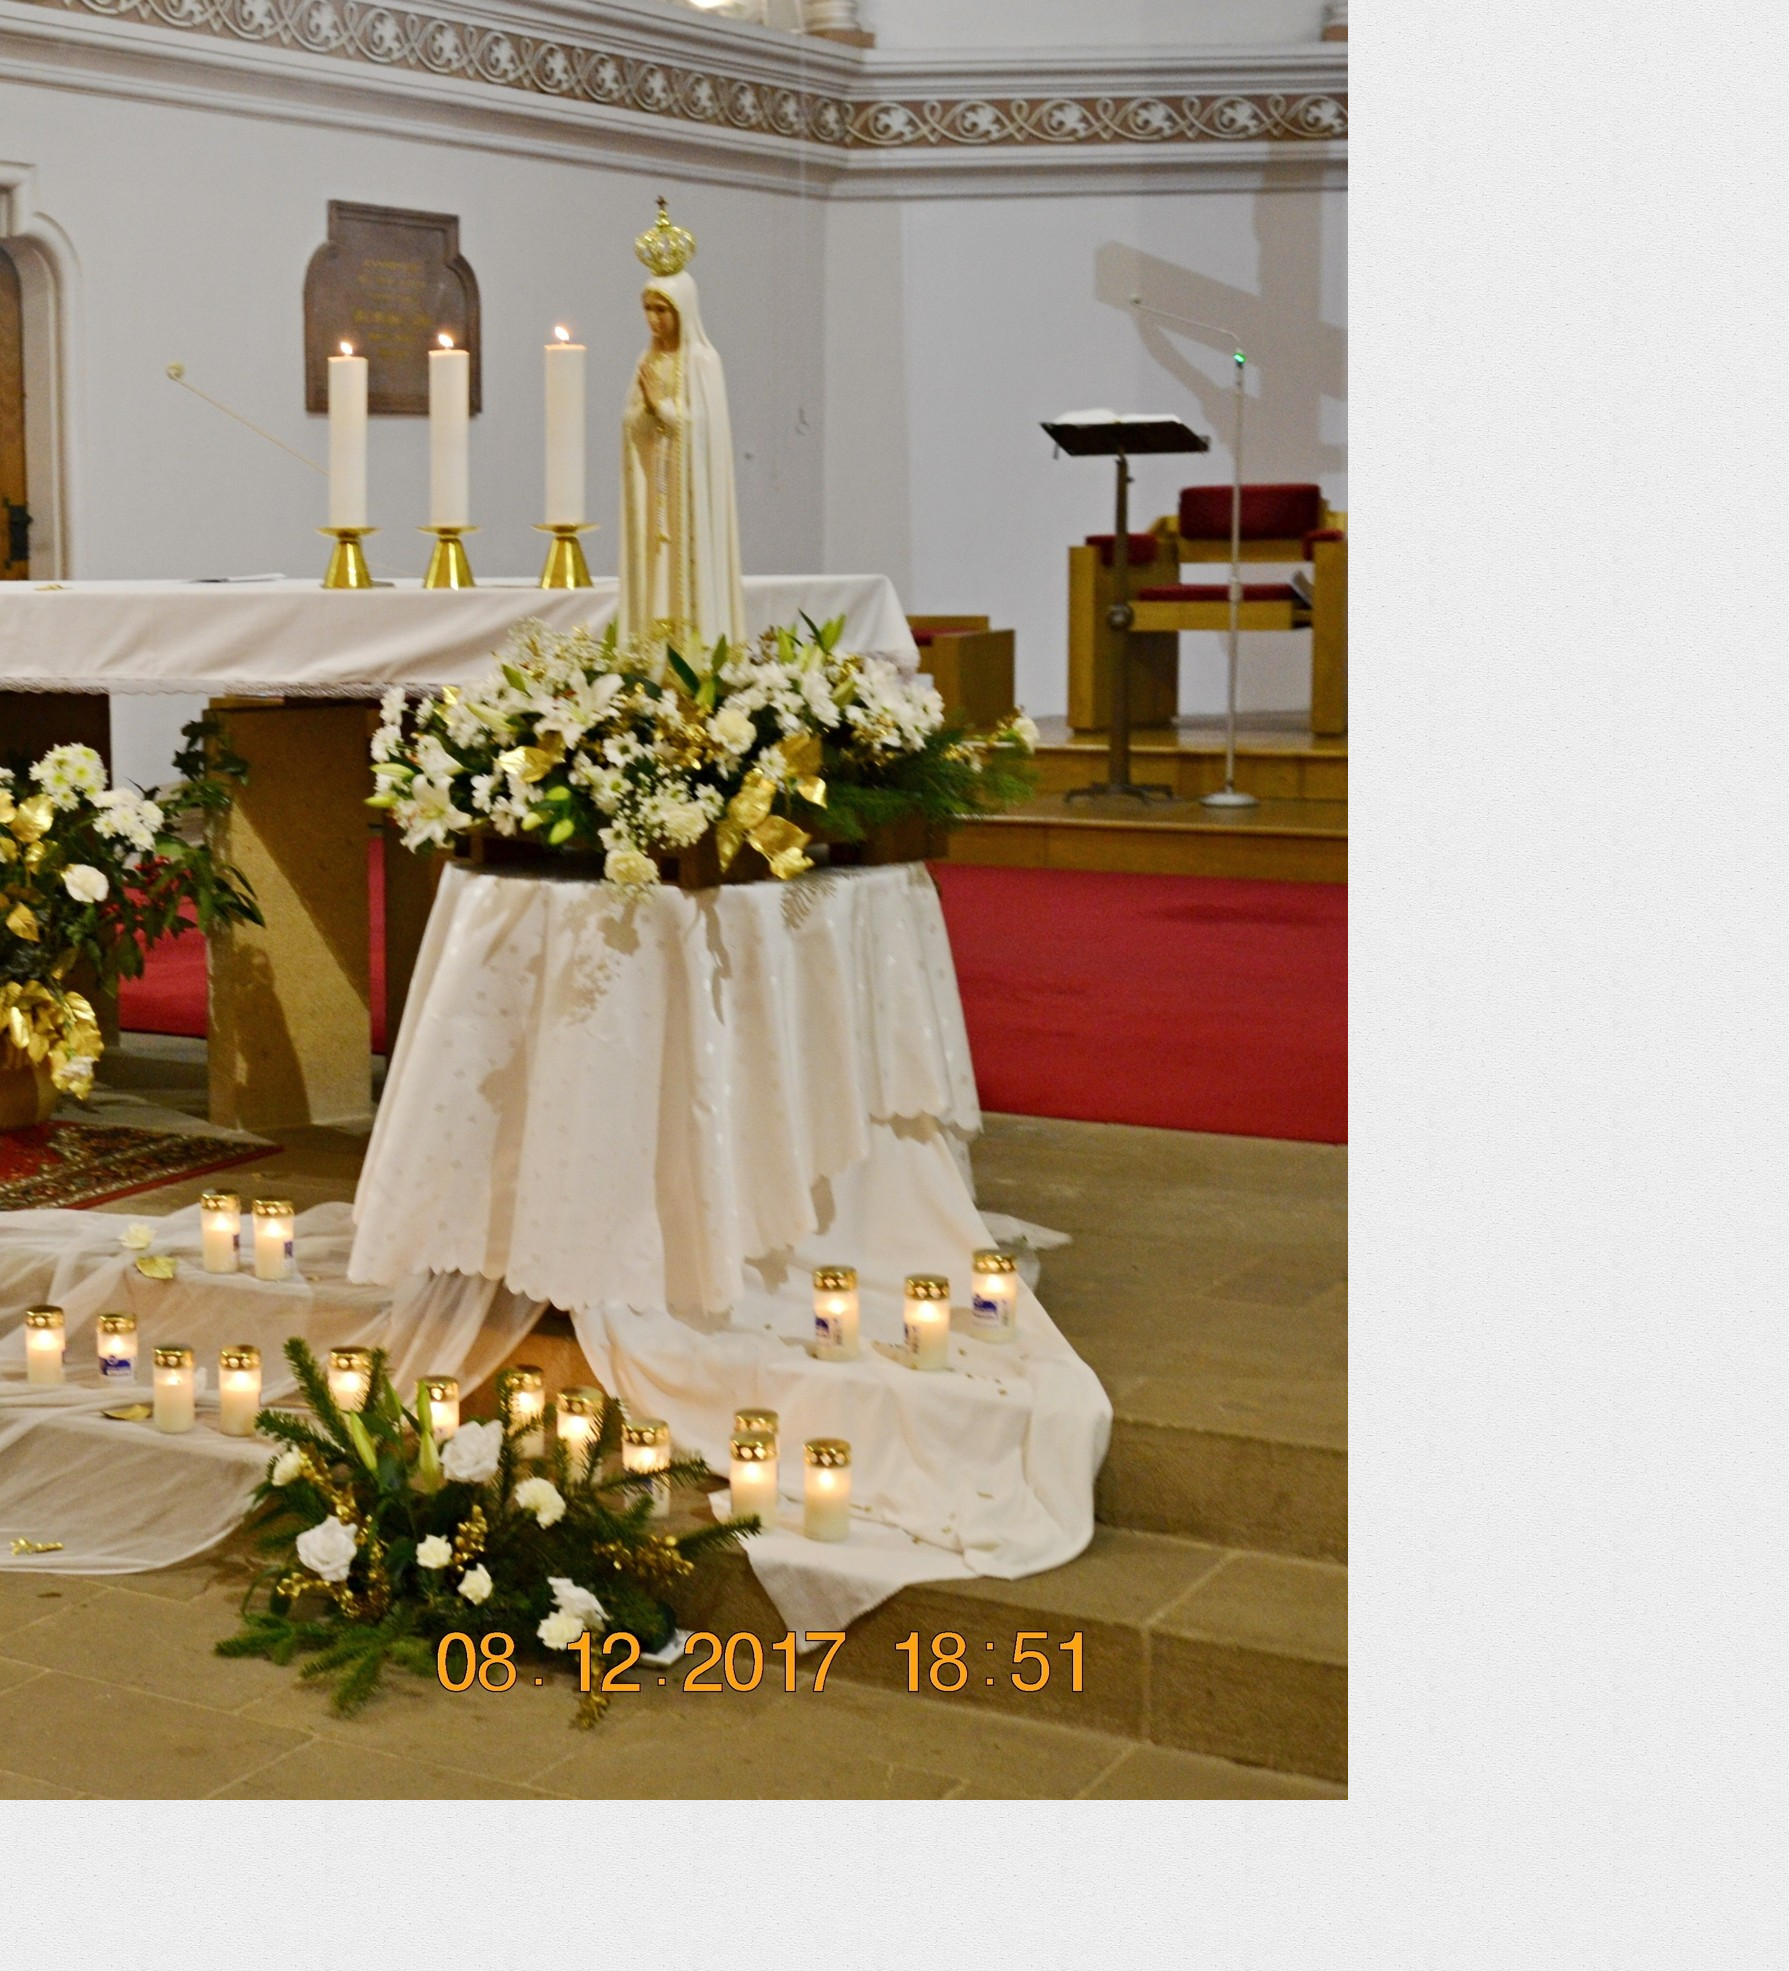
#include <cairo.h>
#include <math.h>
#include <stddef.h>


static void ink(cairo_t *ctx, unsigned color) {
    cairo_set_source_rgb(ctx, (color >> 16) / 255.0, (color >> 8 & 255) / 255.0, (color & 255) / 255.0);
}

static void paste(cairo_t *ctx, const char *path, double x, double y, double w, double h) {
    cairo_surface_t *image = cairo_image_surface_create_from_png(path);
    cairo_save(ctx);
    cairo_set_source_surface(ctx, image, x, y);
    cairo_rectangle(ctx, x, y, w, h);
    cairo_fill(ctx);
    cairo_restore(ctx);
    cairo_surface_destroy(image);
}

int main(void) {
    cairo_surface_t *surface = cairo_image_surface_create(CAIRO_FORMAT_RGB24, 1789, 1971);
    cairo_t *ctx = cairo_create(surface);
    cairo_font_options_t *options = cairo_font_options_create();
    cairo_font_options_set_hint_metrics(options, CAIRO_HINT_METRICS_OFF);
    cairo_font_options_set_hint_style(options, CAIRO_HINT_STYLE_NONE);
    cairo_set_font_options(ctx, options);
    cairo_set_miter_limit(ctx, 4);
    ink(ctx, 0xFFFFFF);
    cairo_paint(ctx);
    paste(ctx, "media/1.png", 0, 0, 1789, 1971);
    paste(ctx, "media/2.png", 0, 0, 1348, 1800);
    cairo_surface_write_to_png(surface, "image.png");
    cairo_font_options_destroy(options);
    cairo_destroy(ctx);
    cairo_surface_destroy(surface);
    return 0;
}
